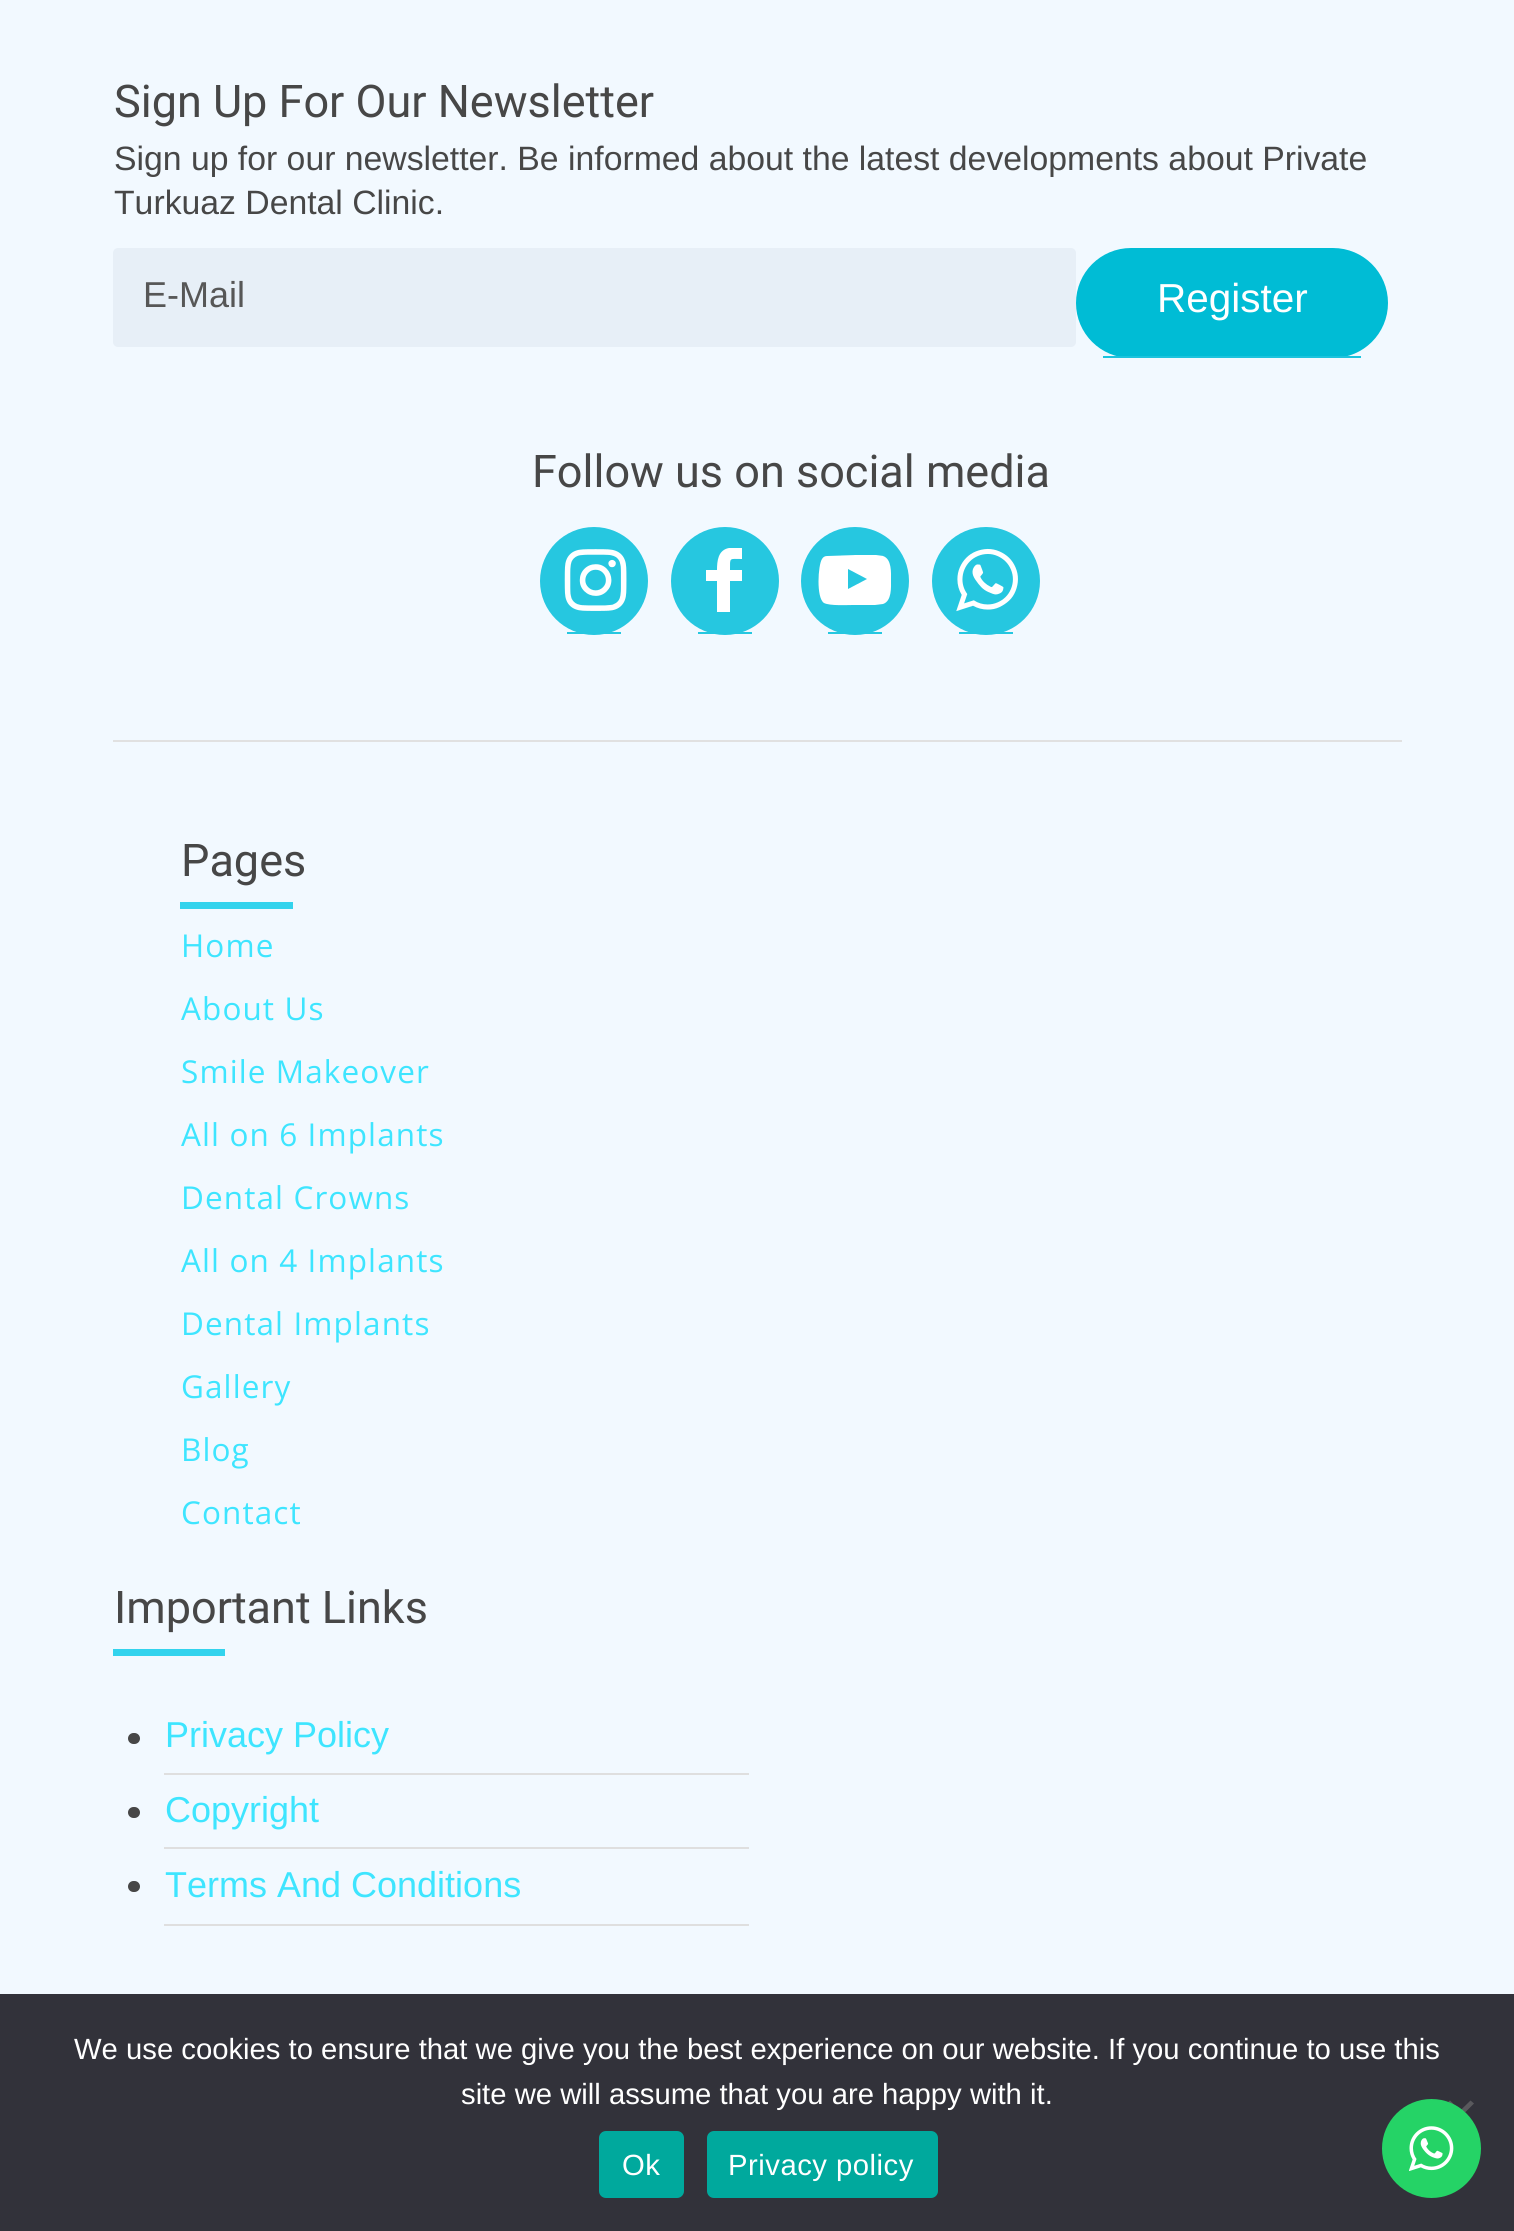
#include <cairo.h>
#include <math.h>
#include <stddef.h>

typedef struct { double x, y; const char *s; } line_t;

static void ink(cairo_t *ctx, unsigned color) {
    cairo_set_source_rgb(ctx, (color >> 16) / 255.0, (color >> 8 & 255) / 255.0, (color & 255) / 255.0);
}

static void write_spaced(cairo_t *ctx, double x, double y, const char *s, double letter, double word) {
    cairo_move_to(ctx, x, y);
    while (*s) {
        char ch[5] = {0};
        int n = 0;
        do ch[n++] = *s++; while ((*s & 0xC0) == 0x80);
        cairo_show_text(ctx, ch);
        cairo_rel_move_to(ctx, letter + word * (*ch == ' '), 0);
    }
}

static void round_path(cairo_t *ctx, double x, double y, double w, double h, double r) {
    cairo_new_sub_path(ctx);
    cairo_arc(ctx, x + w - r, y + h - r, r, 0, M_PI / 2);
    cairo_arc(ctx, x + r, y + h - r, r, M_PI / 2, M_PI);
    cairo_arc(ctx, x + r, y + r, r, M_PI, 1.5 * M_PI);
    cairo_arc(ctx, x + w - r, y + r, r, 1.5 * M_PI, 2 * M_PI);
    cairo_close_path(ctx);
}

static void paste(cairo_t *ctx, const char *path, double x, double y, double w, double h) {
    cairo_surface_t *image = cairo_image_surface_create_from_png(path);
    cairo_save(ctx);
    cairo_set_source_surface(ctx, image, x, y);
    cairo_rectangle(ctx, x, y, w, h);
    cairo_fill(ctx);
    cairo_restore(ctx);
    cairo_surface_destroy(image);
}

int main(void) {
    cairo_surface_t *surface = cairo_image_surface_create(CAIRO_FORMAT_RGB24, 1514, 2231);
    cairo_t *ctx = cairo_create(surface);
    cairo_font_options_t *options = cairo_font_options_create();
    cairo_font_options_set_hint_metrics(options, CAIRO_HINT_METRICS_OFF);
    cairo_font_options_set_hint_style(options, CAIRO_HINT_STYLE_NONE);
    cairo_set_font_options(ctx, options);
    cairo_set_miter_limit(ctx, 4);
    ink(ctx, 0xF2F9FF);
    cairo_paint(ctx);
    cairo_select_font_face(ctx, "Roboto", CAIRO_FONT_SLANT_NORMAL, CAIRO_FONT_WEIGHT_NORMAL);
    cairo_set_font_size(ctx, 45);
    ink(ctx, 0x474747);
    cairo_move_to(ctx, 114, 117);
    cairo_show_text(ctx, "Sign Up For Our Newsletter");
    cairo_select_font_face(ctx, "Liberation Sans", CAIRO_FONT_SLANT_NORMAL, CAIRO_FONT_WEIGHT_NORMAL);
    cairo_set_font_size(ctx, 33.75);
    cairo_move_to(ctx, 114, 170);
    cairo_show_text(ctx, "Sign up for our newsletter. Be informed about the latest developments about Private");
    cairo_move_to(ctx, 114, 214);
    cairo_show_text(ctx, "Turkuaz Dental Clinic.");
    ink(ctx, 0xE7EFF7);
    round_path(ctx, 113, 248, 963, 99, 5);
    cairo_fill(ctx);
    cairo_set_font_size(ctx, 36);
    ink(ctx, 0x575757);
    cairo_move_to(ctx, 143, 307);
    cairo_show_text(ctx, "E-Mail");
    ink(ctx, 0x00BCD5);
    round_path(ctx, 1076, 248, 312, 110, 55);
    cairo_fill(ctx);
    ink(ctx, 0x1CC3DD);
    cairo_rectangle(ctx, 1103, 356, 258, 2);
    cairo_fill(ctx);
    cairo_set_font_size(ctx, 40.5);
    ink(ctx, 0xFFFFFF);
    cairo_move_to(ctx, 1157, 312);
    cairo_show_text(ctx, "Register");
    cairo_select_font_face(ctx, "Roboto", CAIRO_FONT_SLANT_NORMAL, CAIRO_FONT_WEIGHT_NORMAL);
    cairo_set_font_size(ctx, 45);
    ink(ctx, 0x474747);
    cairo_move_to(ctx, 532, 487);
    cairo_show_text(ctx, "Follow us on social media");
    ink(ctx, 0x26C7E0);
    cairo_new_path(ctx);
    cairo_arc(ctx, 594, 581, 54, 0, 2 * M_PI);
    cairo_fill(ctx);
    cairo_rectangle(ctx, 567, 632, 54, 2);
    cairo_fill(ctx);
    paste(ctx, "media/1.png", 564, 549, 63, 62);
    cairo_arc(ctx, 725, 581, 54, 0, 2 * M_PI);
    cairo_fill(ctx);
    cairo_rectangle(ctx, 698, 632, 54, 2);
    cairo_fill(ctx);
    ink(ctx, 0xFFFFFF);
    cairo_new_path(ctx);
    cairo_move_to(ctx, 742, 559);
    cairo_curve_to(ctx, 729, 559, 730, 557, 730, 570);
    cairo_line_to(ctx, 742, 570);
    cairo_line_to(ctx, 742, 581);
    cairo_line_to(ctx, 730, 581);
    cairo_line_to(ctx, 730, 612);
    cairo_line_to(ctx, 717, 612);
    cairo_line_to(ctx, 717, 581);
    cairo_line_to(ctx, 706, 581);
    cairo_line_to(ctx, 706, 570);
    cairo_line_to(ctx, 717, 570);
    cairo_curve_to(ctx, 717, 561, 718, 550, 729, 548);
    cairo_line_to(ctx, 742, 548);
    cairo_close_path(ctx);
    cairo_fill(ctx);
    ink(ctx, 0x26C7E0);
    cairo_arc(ctx, 855, 581, 54, 0, 2 * M_PI);
    cairo_fill(ctx);
    cairo_rectangle(ctx, 828, 632, 54, 2);
    cairo_fill(ctx);
    ink(ctx, 0xFFFFFF);
    cairo_new_path(ctx);
    cairo_move_to(ctx, 848, 589);
    cairo_line_to(ctx, 867, 579);
    cairo_line_to(ctx, 848, 569);
    cairo_close_path(ctx);
    cairo_move_to(ctx, 855, 555);
    cairo_line_to(ctx, 876, 555);
    cairo_line_to(ctx, 883, 556);
    cairo_curve_to(ctx, 892, 559, 891, 573, 891, 580);
    cairo_curve_to(ctx, 891, 587, 892, 601, 883, 604);
    cairo_line_to(ctx, 875, 605);
    cairo_line_to(ctx, 853, 605);
    cairo_curve_to(ctx, 847, 605, 830, 606, 824, 603);
    cairo_curve_to(ctx, 816, 598, 818, 565, 822, 559);
    cairo_curve_to(ctx, 823, 557, 825, 556, 827, 556);
    cairo_close_path(ctx);
    cairo_fill(ctx);
    ink(ctx, 0x26C7E0);
    cairo_arc(ctx, 986, 581, 54, 0, 2 * M_PI);
    cairo_fill(ctx);
    cairo_rectangle(ctx, 959, 632, 54, 2);
    cairo_fill(ctx);
    paste(ctx, "media/2.png", 956, 548, 62, 64);
    ink(ctx, 0xE1E1E1);
    cairo_rectangle(ctx, 113, 740, 1289, 2);
    cairo_fill(ctx);
    ink(ctx, 0x474747);
    cairo_move_to(ctx, 181, 876);
    cairo_show_text(ctx, "Pages");
    ink(ctx, 0x33D3ED);
    cairo_rectangle(ctx, 180, 902, 113, 7);
    cairo_fill(ctx);
    cairo_select_font_face(ctx, "Open Sans", CAIRO_FONT_SLANT_NORMAL, CAIRO_FONT_WEIGHT_NORMAL);
    cairo_set_font_size(ctx, 31.5);
    ink(ctx, 0x3EE5FF);
    {
        static const line_t items[] = {
            {181, 957, "Home"},
            {181, 1020, "About Us"},
            {181, 1083, "Smile Makeover"},
            {181, 1146, "All on 6 Implants"},
            {181, 1209, "Dental Crowns"},
            {181, 1272, "All on 4 Implants"},
            {181, 1335, "Dental Implants"},
            {181, 1398, "Gallery"},
            {181, 1461, "Blog"},
            {181, 1524, "Contact"},
        };
        for (size_t i = 0; i < sizeof items / sizeof *items; i++) {
            write_spaced(ctx, items[i].x, items[i].y, items[i].s, 1.1, 0);
        }
    }
    cairo_select_font_face(ctx, "Roboto", CAIRO_FONT_SLANT_NORMAL, CAIRO_FONT_WEIGHT_NORMAL);
    cairo_set_font_size(ctx, 45);
    ink(ctx, 0x474747);
    cairo_move_to(ctx, 114, 1623);
    cairo_show_text(ctx, "Important Links");
    ink(ctx, 0x33D3ED);
    cairo_rectangle(ctx, 113, 1649, 112, 7);
    cairo_fill(ctx);
    ink(ctx, 0xDFDFDF);
    cairo_rectangle(ctx, 164, 1773, 585, 2);
    cairo_fill(ctx);
    ink(ctx, 0x474747);
    round_path(ctx, 128, 1733, 12, 11, 5.5);
    cairo_fill(ctx);
    cairo_select_font_face(ctx, "Liberation Sans", CAIRO_FONT_SLANT_NORMAL, CAIRO_FONT_WEIGHT_NORMAL);
    cairo_set_font_size(ctx, 36);
    ink(ctx, 0x3EE5FF);
    cairo_move_to(ctx, 165, 1747);
    cairo_show_text(ctx, "Privacy Policy");
    ink(ctx, 0xDFDFDF);
    cairo_rectangle(ctx, 164, 1847, 585, 2);
    cairo_fill(ctx);
    ink(ctx, 0x474747);
    round_path(ctx, 128, 1807, 12, 11, 5.5);
    cairo_fill(ctx);
    ink(ctx, 0x3EE5FF);
    cairo_move_to(ctx, 165, 1822);
    cairo_show_text(ctx, "Copyright");
    ink(ctx, 0xDFDFDF);
    cairo_rectangle(ctx, 164, 1924, 585, 2);
    cairo_fill(ctx);
    ink(ctx, 0x474747);
    round_path(ctx, 128, 1881, 12, 11, 5.5);
    cairo_fill(ctx);
    ink(ctx, 0x3EE5FF);
    cairo_move_to(ctx, 165, 1897);
    cairo_show_text(ctx, "Terms And Conditions");
    ink(ctx, 0x32323A);
    cairo_rectangle(ctx, 0, 1994, 1514, 237);
    cairo_fill(ctx);
    cairo_set_font_size(ctx, 29.25);
    ink(ctx, 0xFFFFFF);
    cairo_move_to(ctx, 74, 2059);
    cairo_show_text(ctx, "We use cookies to ensure that we give you the best experience on our website. If you continue to use this");
    cairo_move_to(ctx, 461, 2104);
    cairo_show_text(ctx, "site we will assume that you are happy with it.");
    ink(ctx, 0x59595D);
    cairo_new_path(ctx);
    cairo_move_to(ctx, 1470.5, 2100.5);
    cairo_line_to(ctx, 1474, 2103.5);
    cairo_line_to(ctx, 1450, 2127.5);
    cairo_line_to(ctx, 1446.5, 2124);
    cairo_close_path(ctx);
    cairo_fill(ctx);
    cairo_new_path(ctx);
    cairo_move_to(ctx, 1446.5, 2103.5);
    cairo_line_to(ctx, 1450, 2100.5);
    cairo_line_to(ctx, 1474, 2124);
    cairo_line_to(ctx, 1470.5, 2127.5);
    cairo_close_path(ctx);
    cairo_fill(ctx);
    ink(ctx, 0x00A99D);
    round_path(ctx, 599, 2131, 85, 67, 7);
    cairo_fill(ctx);
    ink(ctx, 0xFFFFFF);
    write_spaced(ctx, 622, 2175, "Ok", 0.5, 0);
    ink(ctx, 0x00A99D);
    round_path(ctx, 707, 2131, 231, 67, 7);
    cairo_fill(ctx);
    ink(ctx, 0xFFFFFF);
    write_spaced(ctx, 728, 2175, "Privacy policy", 0.5, 0);
    ink(ctx, 0x25D366);
    cairo_new_path(ctx);
    cairo_arc(ctx, 1431.5, 2148.5, 49.5, 0, 2 * M_PI);
    cairo_fill(ctx);
    paste(ctx, "media/3.png", 1409, 2126, 45, 45);
    cairo_surface_write_to_png(surface, "image.png");
    cairo_font_options_destroy(options);
    cairo_destroy(ctx);
    cairo_surface_destroy(surface);
    return 0;
}
